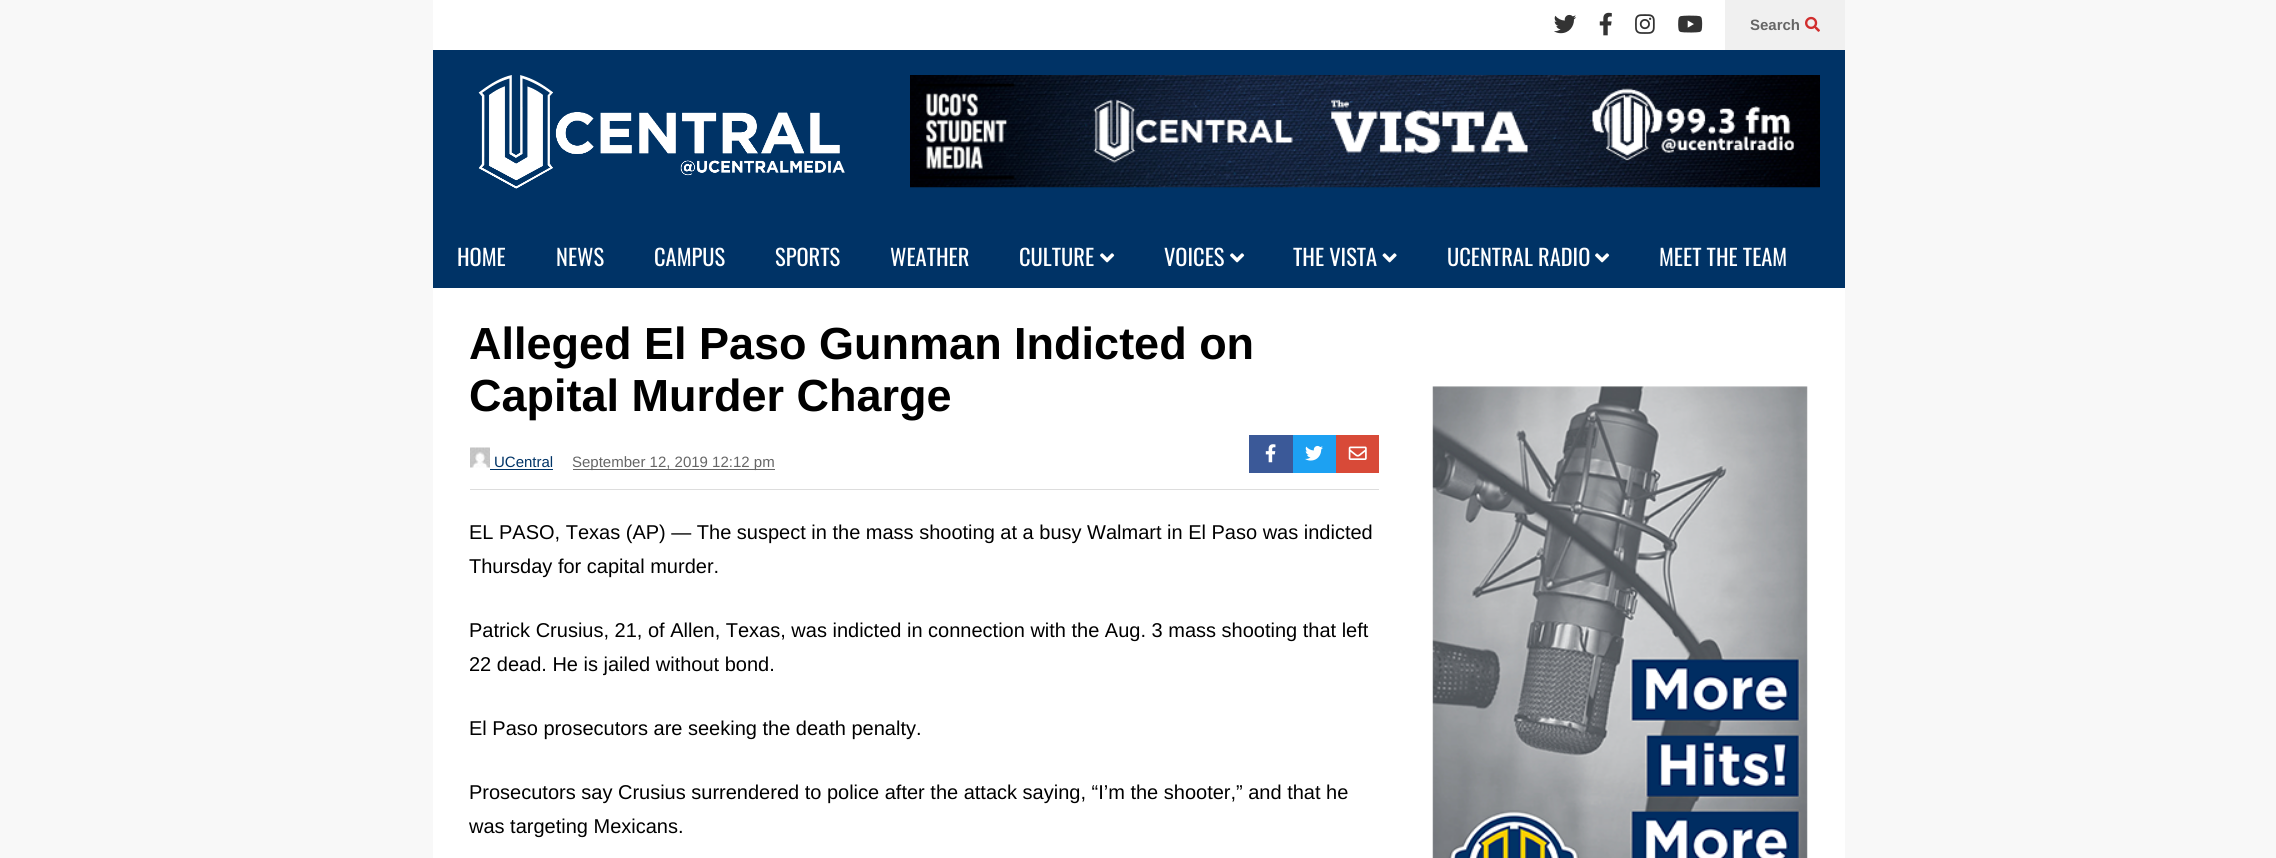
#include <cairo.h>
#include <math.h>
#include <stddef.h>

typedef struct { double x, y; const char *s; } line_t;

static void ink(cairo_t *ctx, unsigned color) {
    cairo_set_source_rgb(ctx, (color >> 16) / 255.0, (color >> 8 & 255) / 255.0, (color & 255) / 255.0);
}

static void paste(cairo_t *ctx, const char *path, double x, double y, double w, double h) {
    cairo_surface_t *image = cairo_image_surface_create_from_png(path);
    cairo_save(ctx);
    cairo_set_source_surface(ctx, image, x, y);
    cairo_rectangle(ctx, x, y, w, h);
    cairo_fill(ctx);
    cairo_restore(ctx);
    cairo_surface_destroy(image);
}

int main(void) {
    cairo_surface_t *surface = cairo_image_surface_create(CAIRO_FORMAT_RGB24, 2276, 858);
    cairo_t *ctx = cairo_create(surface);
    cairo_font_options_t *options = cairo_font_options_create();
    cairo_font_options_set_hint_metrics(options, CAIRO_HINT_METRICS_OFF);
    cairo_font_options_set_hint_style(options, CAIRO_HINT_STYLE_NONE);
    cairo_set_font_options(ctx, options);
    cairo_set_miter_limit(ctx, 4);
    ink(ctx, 0xF8F8F8);
    cairo_paint(ctx);
    ink(ctx, 0xFFFFFF);
    cairo_rectangle(ctx, 433, 0, 1292, 50);
    cairo_fill(ctx);
    paste(ctx, "media/1.png", 1554, 14, 23, 20);
    paste(ctx, "media/2.png", 1599, 12, 13, 24);
    paste(ctx, "media/3.png", 1635, 14, 20, 20);
    paste(ctx, "media/4.png", 1678, 15, 25, 18);
    ink(ctx, 0xF0F0F0);
    cairo_rectangle(ctx, 1725, 0, 120, 50);
    cairo_fill(ctx);
    cairo_select_font_face(ctx, "Liberation Sans", CAIRO_FONT_SLANT_NORMAL, CAIRO_FONT_WEIGHT_BOLD);
    cairo_set_font_size(ctx, 15);
    ink(ctx, 0x666666);
    cairo_move_to(ctx, 1750, 30);
    cairo_show_text(ctx, "Search");
    paste(ctx, "media/5.png", 1805, 16, 15, 16);
    ink(ctx, 0x003366);
    cairo_rectangle(ctx, 433, 50, 1412, 238);
    cairo_fill(ctx);
    paste(ctx, "media/6.png", 478, 75, 367, 114);
    paste(ctx, "media/7.png", 910, 75, 910, 113);
    cairo_select_font_face(ctx, "Oswald", CAIRO_FONT_SLANT_NORMAL, CAIRO_FONT_WEIGHT_NORMAL);
    cairo_set_font_size(ctx, 22.5);
    ink(ctx, 0xFFFFFF);
    {
        static const line_t items[] = {
            {457, 266, "HOME"},
            {556, 266, "NEWS"},
            {654, 266, "CAMPUS"},
            {775, 266, "SPORTS"},
            {890, 266, "WEATHER"},
            {1019, 266, "CULTURE"},
        };
        for (size_t i = 0; i < sizeof items / sizeof *items; i++) {
            cairo_move_to(ctx, items[i].x, items[i].y);
            cairo_show_text(ctx, items[i].s);
        }
    }
    paste(ctx, "media/8.png", 1100, 253, 15, 10);
    cairo_move_to(ctx, 1164, 266);
    cairo_show_text(ctx, "VOICES");
    paste(ctx, "media/8.png", 1230, 253, 15, 10);
    cairo_move_to(ctx, 1293, 266);
    cairo_show_text(ctx, "THE VISTA");
    paste(ctx, "media/9.png", 1382, 253, 15, 10);
    cairo_move_to(ctx, 1447, 266);
    cairo_show_text(ctx, "UCENTRAL RADIO");
    paste(ctx, "media/8.png", 1595, 253, 15, 10);
    cairo_move_to(ctx, 1659, 266);
    cairo_show_text(ctx, "MEET THE TEAM");
    cairo_rectangle(ctx, 433, 288, 1412, 570);
    cairo_fill(ctx);
    cairo_select_font_face(ctx, "Liberation Sans", CAIRO_FONT_SLANT_NORMAL, CAIRO_FONT_WEIGHT_BOLD);
    cairo_set_font_size(ctx, 45);
    ink(ctx, 0x000000);
    cairo_move_to(ctx, 469, 359);
    cairo_show_text(ctx, "Alleged El Paso Gunman Indicted on");
    cairo_move_to(ctx, 469, 411);
    cairo_show_text(ctx, "Capital Murder Charge");
    ink(ctx, 0xDDDDDD);
    cairo_rectangle(ctx, 470, 489, 909, 1);
    cairo_fill(ctx);
    paste(ctx, "media/10.png", 470, 447, 20, 21);
    cairo_select_font_face(ctx, "Liberation Sans", CAIRO_FONT_SLANT_NORMAL, CAIRO_FONT_WEIGHT_NORMAL);
    cairo_set_font_size(ctx, 15);
    ink(ctx, 0x003366);
    cairo_move_to(ctx, 494, 467);
    cairo_show_text(ctx, "UCentral");
    cairo_rectangle(ctx, 490, 469, 63, 1);
    cairo_fill(ctx);
    ink(ctx, 0x666666);
    cairo_rectangle(ctx, 573, 469, 202, 1);
    cairo_fill(ctx);
    cairo_move_to(ctx, 572, 467);
    cairo_show_text(ctx, "September 12, 2019 12:12 pm");
    ink(ctx, 0x3B5998);
    cairo_rectangle(ctx, 1249, 435, 44, 38);
    cairo_fill(ctx);
    paste(ctx, "media/11.png", 1265, 444, 11, 19);
    ink(ctx, 0x1DA1F2);
    cairo_rectangle(ctx, 1293, 435, 43, 38);
    cairo_fill(ctx);
    paste(ctx, "media/12.png", 1305, 445, 18, 16);
    ink(ctx, 0xD84A38);
    cairo_rectangle(ctx, 1336, 435, 43, 38);
    cairo_fill(ctx);
    paste(ctx, "media/13.png", 1348, 446, 19, 14);
    cairo_set_font_size(ctx, 20);
    ink(ctx, 0x000000);
    {
        static const line_t items[] = {
            {469, 539, "EL PASO, Texas (AP) — The suspect in the mass shooting at a busy Walmart in El Paso was indicted"},
            {469, 573, "Thursday for capital murder."},
            {469, 637, "Patrick Crusius, 21, of Allen, Texas, was indicted in connection with the Aug. 3 mass shooting that left"},
            {469, 671, "22 dead. He is jailed without bond."},
            {469, 735, "El Paso prosecutors are seeking the death penalty."},
            {469, 799, "Prosecutors say Crusius surrendered to police after the attack saying, “I’m the shooter,” and that he"},
            {469, 833, "was targeting Mexicans."},
        };
        for (size_t i = 0; i < sizeof items / sizeof *items; i++) {
            cairo_move_to(ctx, items[i].x, items[i].y);
            cairo_show_text(ctx, items[i].s);
        }
    }
    paste(ctx, "media/14.png", 1432, 386, 376, 472);
    cairo_surface_write_to_png(surface, "image.png");
    cairo_font_options_destroy(options);
    cairo_destroy(ctx);
    cairo_surface_destroy(surface);
    return 0;
}
